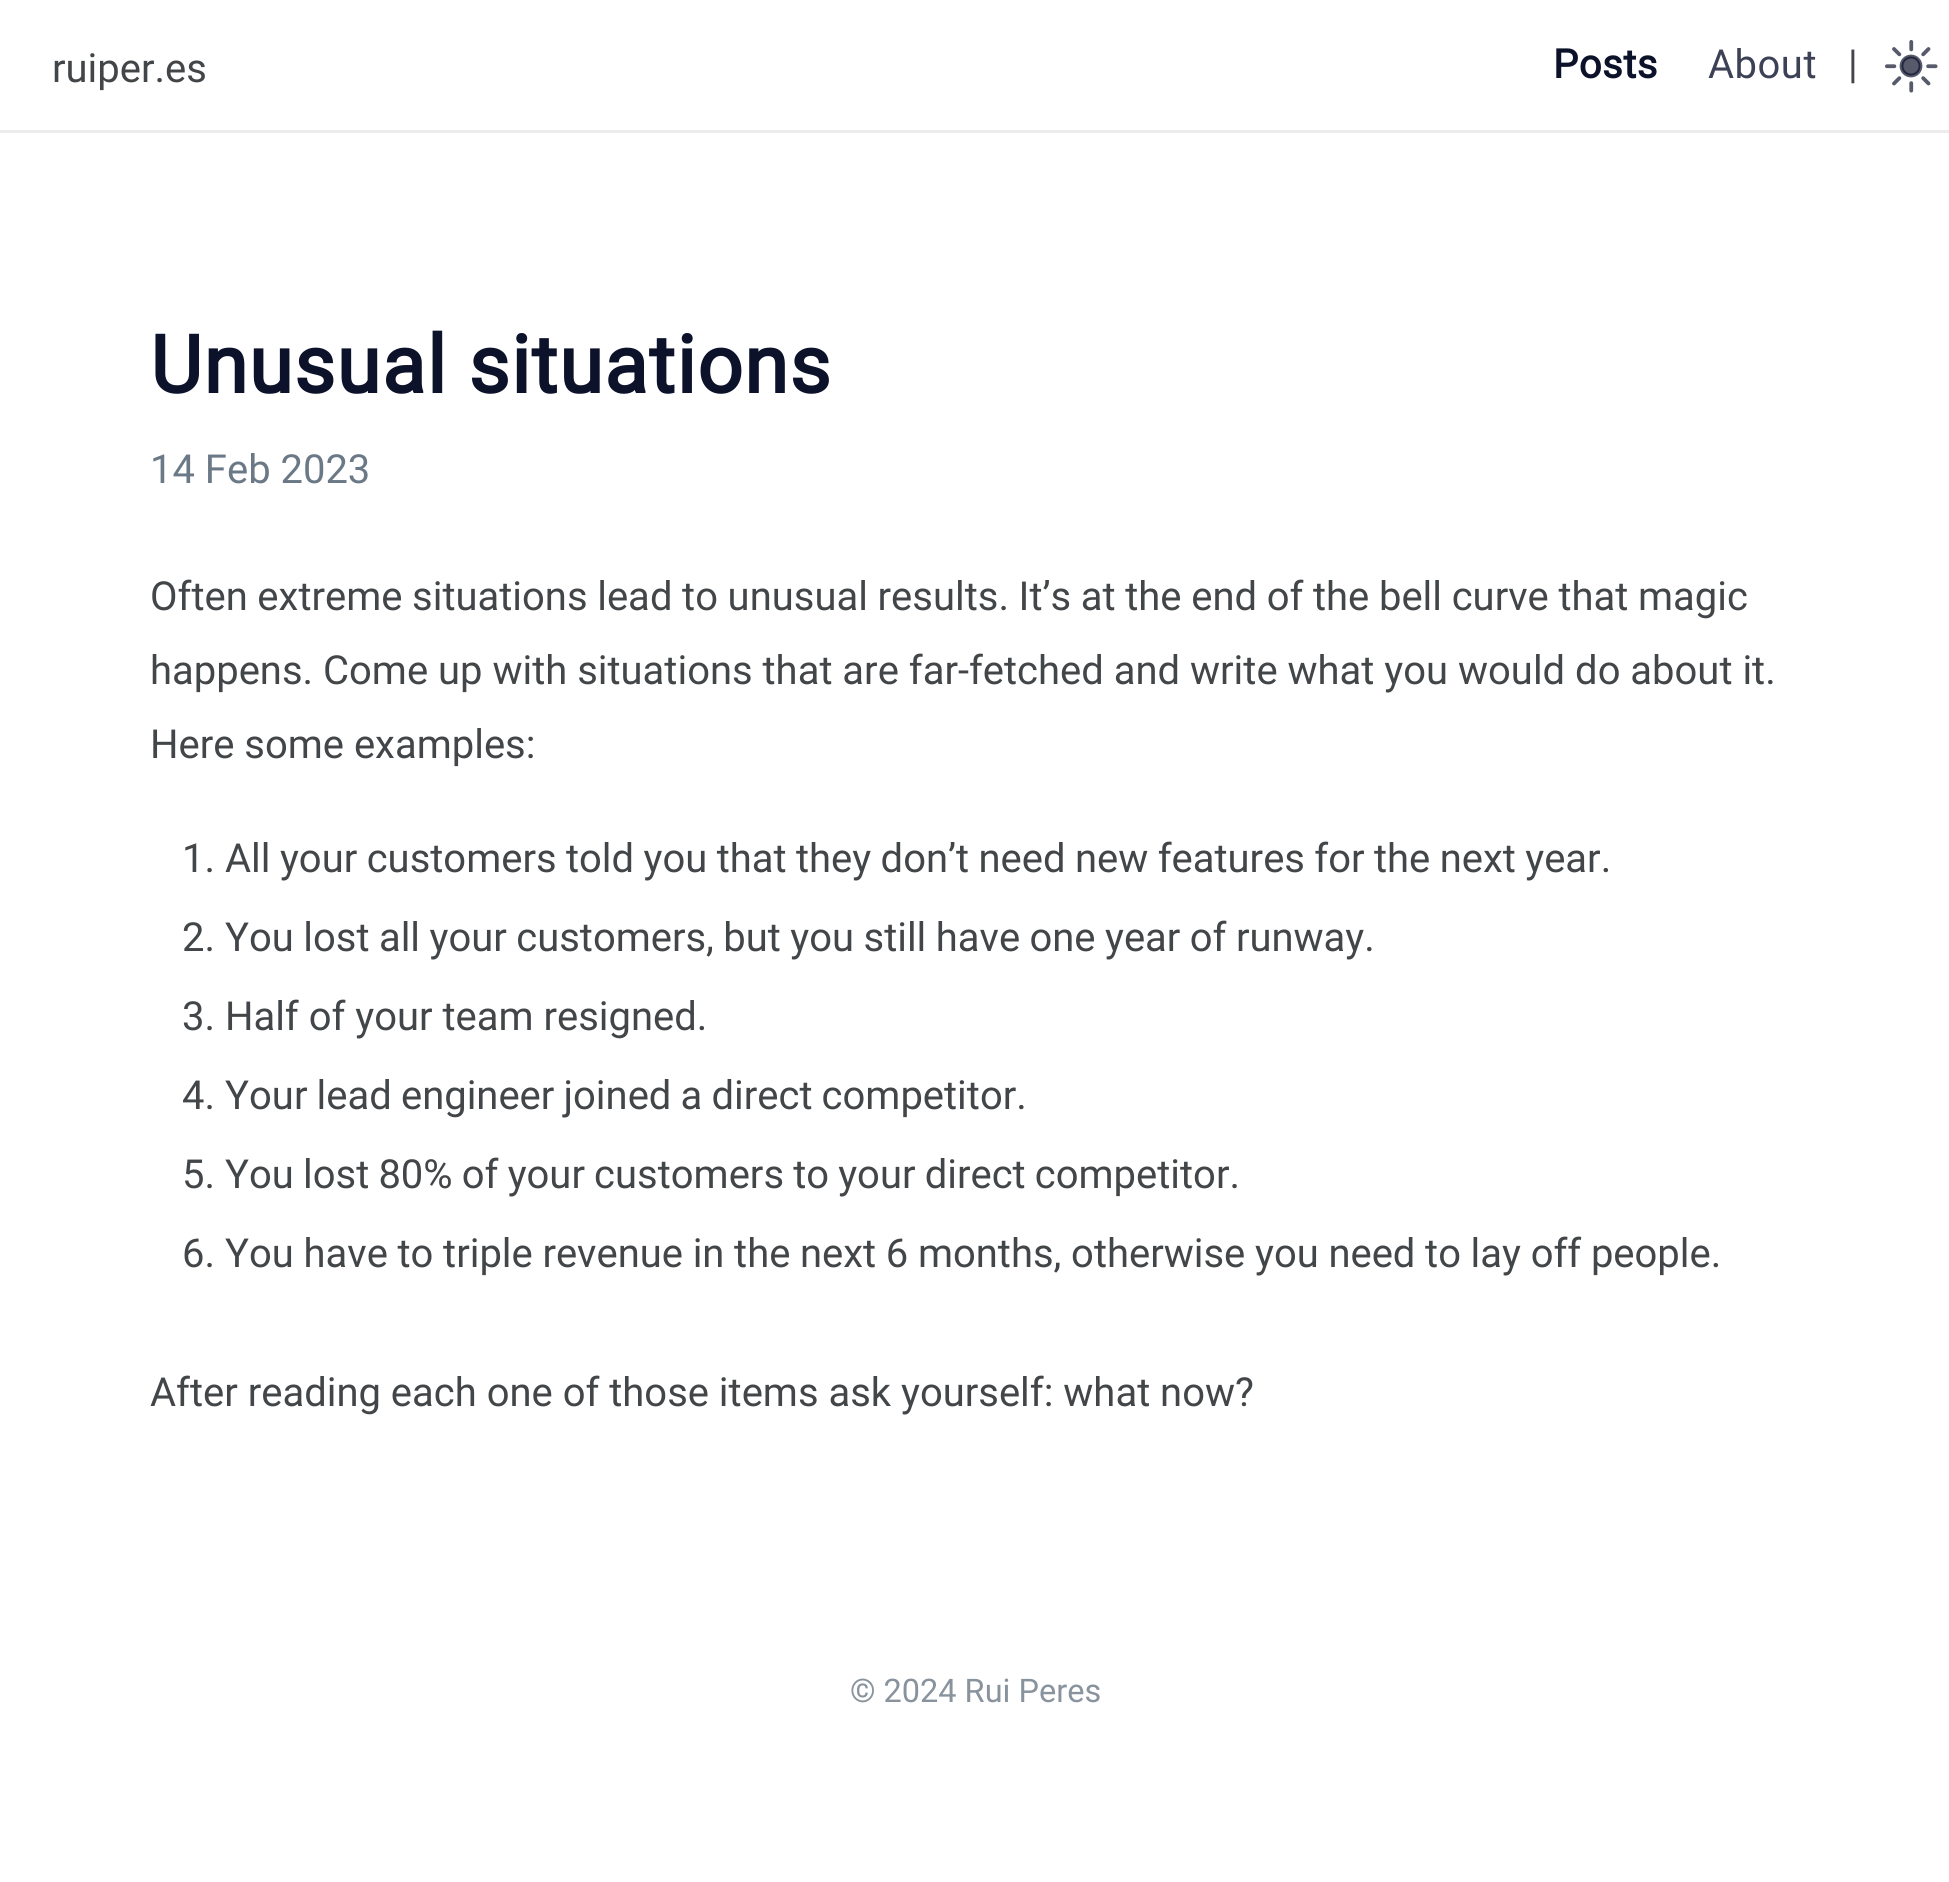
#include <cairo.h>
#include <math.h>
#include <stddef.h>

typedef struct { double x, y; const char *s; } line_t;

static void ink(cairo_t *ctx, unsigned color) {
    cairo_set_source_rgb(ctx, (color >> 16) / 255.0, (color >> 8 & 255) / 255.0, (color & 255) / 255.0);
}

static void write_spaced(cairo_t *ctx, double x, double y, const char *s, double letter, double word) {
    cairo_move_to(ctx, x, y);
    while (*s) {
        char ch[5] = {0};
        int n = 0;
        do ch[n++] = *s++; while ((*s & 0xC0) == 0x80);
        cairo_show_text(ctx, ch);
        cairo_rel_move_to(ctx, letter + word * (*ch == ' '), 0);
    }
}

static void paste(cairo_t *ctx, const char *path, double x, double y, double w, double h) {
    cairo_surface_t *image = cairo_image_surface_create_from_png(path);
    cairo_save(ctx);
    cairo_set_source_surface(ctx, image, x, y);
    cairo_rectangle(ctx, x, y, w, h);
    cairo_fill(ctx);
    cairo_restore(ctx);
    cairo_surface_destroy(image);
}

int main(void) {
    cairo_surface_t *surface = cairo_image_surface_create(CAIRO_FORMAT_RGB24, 1949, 1882);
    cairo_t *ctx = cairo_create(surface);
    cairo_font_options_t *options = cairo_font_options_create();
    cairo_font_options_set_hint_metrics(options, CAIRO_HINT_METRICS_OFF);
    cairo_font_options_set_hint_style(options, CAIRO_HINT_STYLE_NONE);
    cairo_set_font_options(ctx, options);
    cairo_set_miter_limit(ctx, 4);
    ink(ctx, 0xFFFFFF);
    cairo_paint(ctx);
    ink(ctx, 0xECECEC);
    cairo_rectangle(ctx, 0, 130, 1949, 3);
    cairo_fill(ctx);
    cairo_select_font_face(ctx, "Roboto", CAIRO_FONT_SLANT_NORMAL, CAIRO_FONT_WEIGHT_NORMAL);
    cairo_set_font_size(ctx, 40);
    ink(ctx, 0x434648);
    cairo_move_to(ctx, 52, 82);
    cairo_show_text(ctx, "ruiper.es");
    cairo_select_font_face(ctx, "Roboto", CAIRO_FONT_SLANT_NORMAL, CAIRO_FONT_WEIGHT_BOLD);
    ink(ctx, 0x0D122B);
    write_spaced(ctx, 1553, 78, "Posts", 0.5, 0);
    cairo_select_font_face(ctx, "Roboto", CAIRO_FONT_SLANT_NORMAL, CAIRO_FONT_WEIGHT_NORMAL);
    ink(ctx, 0x3D4155);
    write_spaced(ctx, 1708, 78, "About", 0.5, 0);
    ink(ctx, 0x434648);
    cairo_move_to(ctx, 1848, 78);
    cairo_show_text(ctx, "|");
    paste(ctx, "media/1.png", 1885, 40, 53, 53);
    cairo_select_font_face(ctx, "Roboto", CAIRO_FONT_SLANT_NORMAL, CAIRO_FONT_WEIGHT_BOLD);
    cairo_set_font_size(ctx, 80);
    ink(ctx, 0x0D122B);
    write_spaced(ctx, 150, 393, "Unusual situations", 1.25, 0);
    cairo_select_font_face(ctx, "Roboto", CAIRO_FONT_SLANT_NORMAL, CAIRO_FONT_WEIGHT_NORMAL);
    cairo_set_font_size(ctx, 40);
    ink(ctx, 0x6B7886);
    cairo_move_to(ctx, 150, 483);
    cairo_show_text(ctx, "14 Feb 2023");
    ink(ctx, 0x434648);
    write_spaced(ctx, 150, 610, "Often extreme situations lead to unusual results. It’s at the end of the bell curve that magic", 0, -0.25);
    {
        static const line_t items[] = {
            {150, 684, "happens. Come up with situations that are far-fetched and write what you would do about it."},
            {150, 758, "Here some examples:"},
            {182, 872, "1."},
        };
        for (size_t i = 0; i < sizeof items / sizeof *items; i++) {
            cairo_move_to(ctx, items[i].x, items[i].y);
            cairo_show_text(ctx, items[i].s);
        }
    }
    write_spaced(ctx, 225, 872, "All your customers told you that they don’t need new features for the next year.", 0, -0.5);
    cairo_move_to(ctx, 182, 951);
    cairo_show_text(ctx, "2.");
    write_spaced(ctx, 225, 951, "You lost all your customers, but you still have one year of runway.", 0, -0.5);
    cairo_move_to(ctx, 182, 1030);
    cairo_show_text(ctx, "3. Half of your team resigned.");
    cairo_move_to(ctx, 182, 1109);
    cairo_show_text(ctx, "4.");
    write_spaced(ctx, 225, 1109, "Your lead engineer joined a direct competitor.", 0, -0.75);
    cairo_move_to(ctx, 182, 1188);
    cairo_show_text(ctx, "5.");
    write_spaced(ctx, 225, 1188, "You lost 80% of your customers to your direct competitor.", 0, -0.75);
    cairo_move_to(ctx, 182, 1267);
    cairo_show_text(ctx, "6.");
    write_spaced(ctx, 225, 1267, "You have to triple revenue in the next 6 months, otherwise you need to lay off people.", 0, -0.25);
    cairo_move_to(ctx, 150, 1406);
    cairo_show_text(ctx, "After reading each one of those items ask yourself: what now?");
    cairo_set_font_size(ctx, 32.5);
    ink(ctx, 0x89939E);
    cairo_move_to(ctx, 850, 1702);
    cairo_show_text(ctx, "© 2024 Rui Peres");
    cairo_surface_write_to_png(surface, "image.png");
    cairo_font_options_destroy(options);
    cairo_destroy(ctx);
    cairo_surface_destroy(surface);
    return 0;
}
